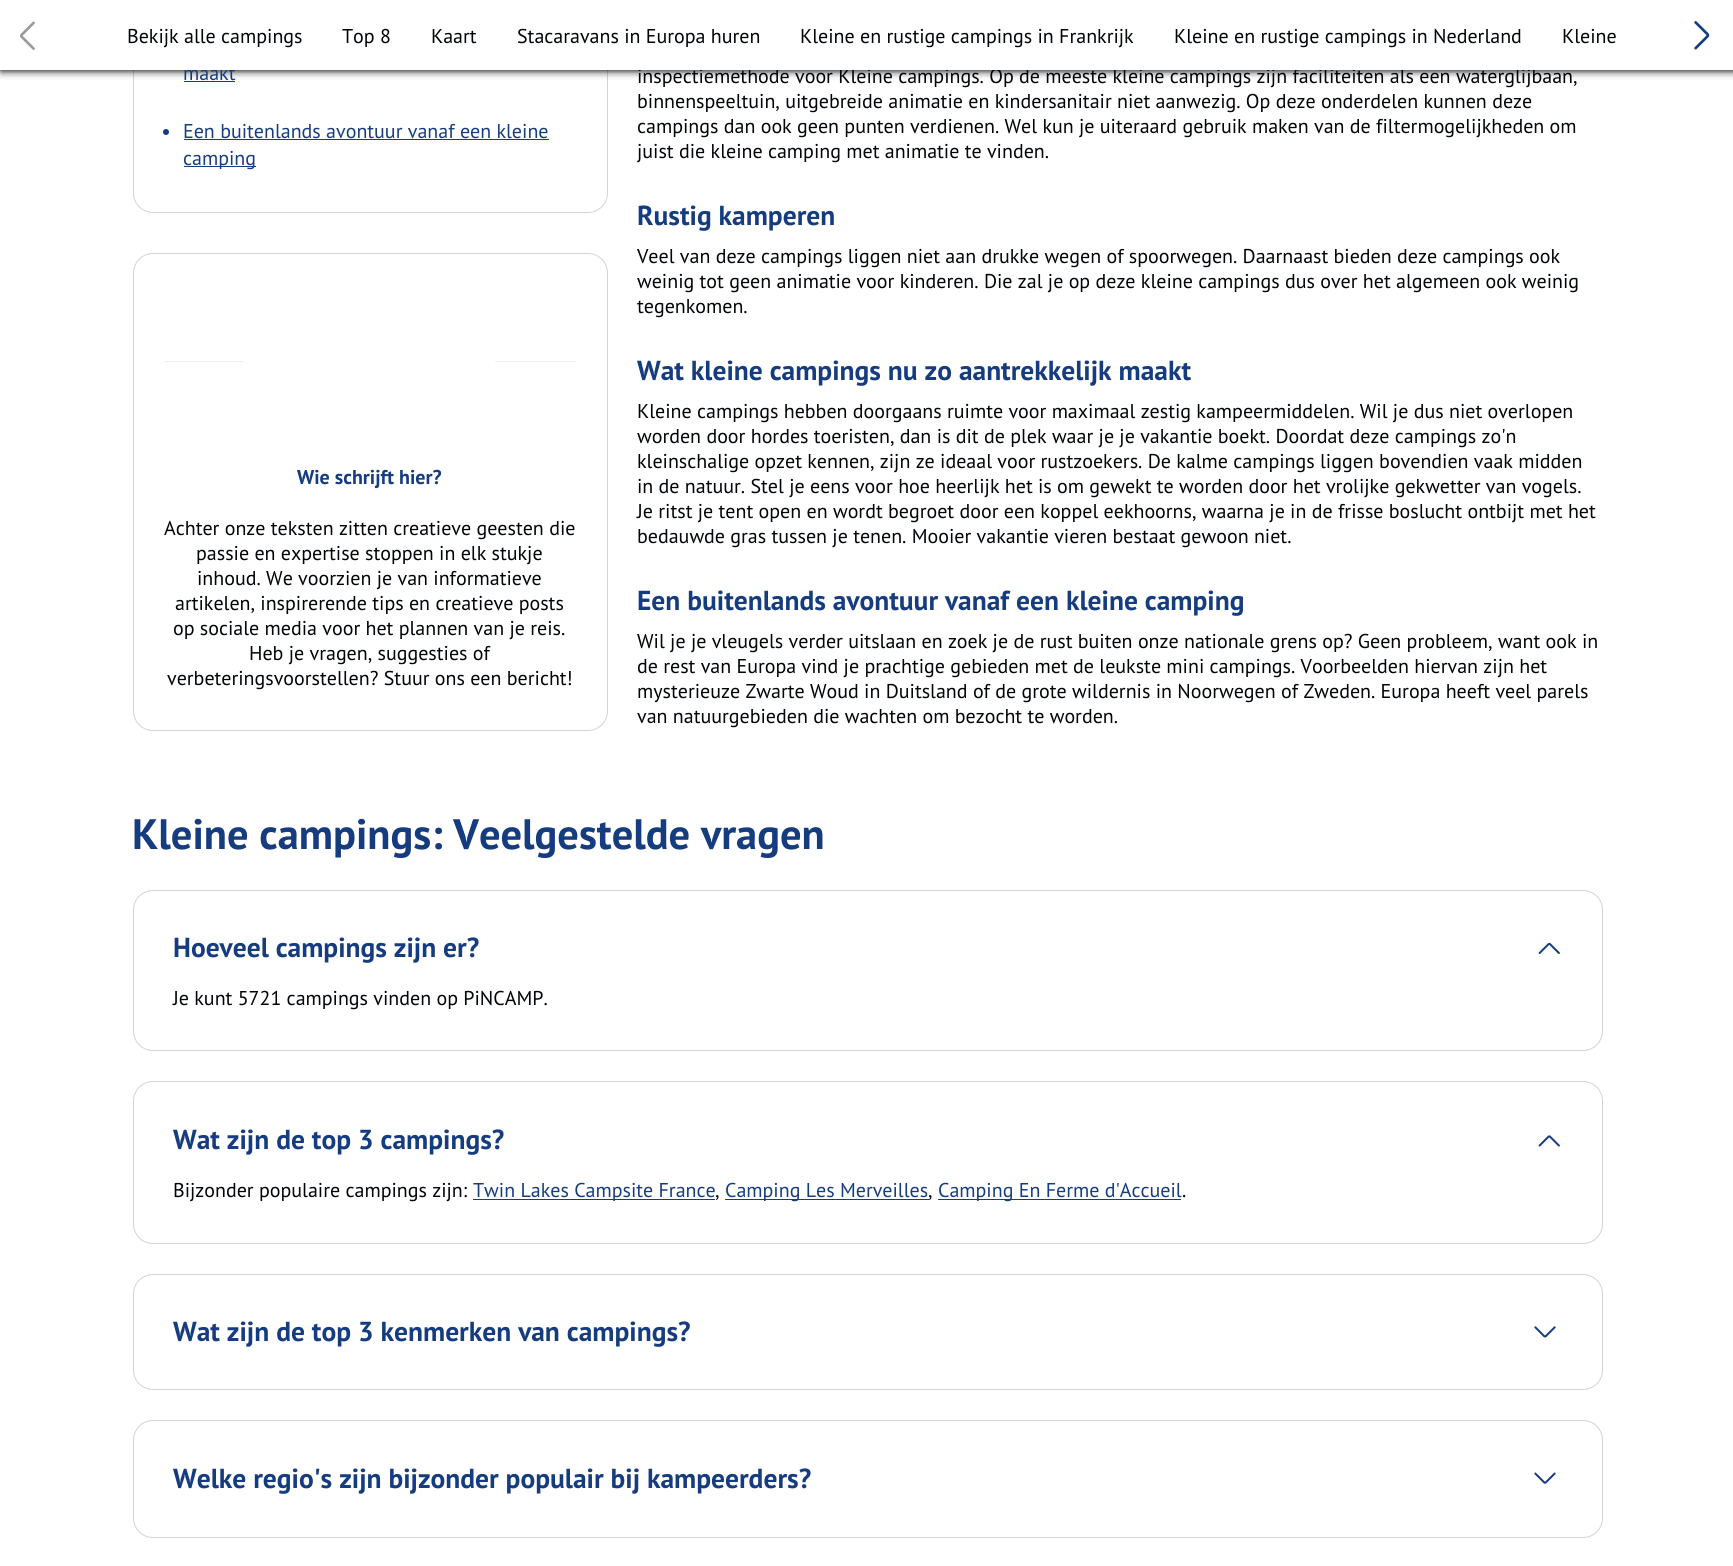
#include <cairo.h>
#include <math.h>
#include <stddef.h>

typedef struct { double x, y; const char *s; } line_t;

static void ink(cairo_t *ctx, unsigned color) {
    cairo_set_source_rgb(ctx, (color >> 16) / 255.0, (color >> 8 & 255) / 255.0, (color & 255) / 255.0);
}

static void round_path(cairo_t *ctx, double x, double y, double w, double h, double r) {
    cairo_new_sub_path(ctx);
    cairo_arc(ctx, x + w - r, y + h - r, r, 0, M_PI / 2);
    cairo_arc(ctx, x + r, y + h - r, r, M_PI / 2, M_PI);
    cairo_arc(ctx, x + r, y + r, r, M_PI, 1.5 * M_PI);
    cairo_arc(ctx, x + w - r, y + r, r, 1.5 * M_PI, 2 * M_PI);
    cairo_close_path(ctx);
}

static void blur_box(cairo_t *ctx, double x, double y, double w, double h, double r, double blur, double alpha) {
    cairo_push_group_with_content(ctx, CAIRO_CONTENT_ALPHA);
    cairo_set_operator(ctx, CAIRO_OPERATOR_SOURCE);
    for (int i = 15; i >= -15 && fmin(w, h) + blur * i / 3 > 0; i -= 2) {
        double e = blur * i / 6;
        cairo_set_source_rgba(ctx, 0, 0, 0, alpha * erfc((i - 1) / 8.5) / 2);
        round_path(ctx, x - e, y - e, w + 2 * e, h + 2 * e, fmax(0, fmin(r + e + blur * .6, fmin(w, h) / 2 + e)));
        cairo_fill(ctx);
    }
    cairo_pattern_t *soft = cairo_pop_group(ctx);
    cairo_mask(ctx, soft);
    cairo_pattern_destroy(soft);
}

static void paste(cairo_t *ctx, const char *path, double x, double y, double w, double h) {
    cairo_surface_t *image = cairo_image_surface_create_from_png(path);
    cairo_save(ctx);
    cairo_set_source_surface(ctx, image, x, y);
    cairo_rectangle(ctx, x, y, w, h);
    cairo_fill(ctx);
    cairo_restore(ctx);
    cairo_surface_destroy(image);
}

int main(void) {
    cairo_surface_t *surface = cairo_image_surface_create(CAIRO_FORMAT_RGB24, 1733, 1566);
    cairo_t *ctx = cairo_create(surface);
    cairo_font_options_t *options = cairo_font_options_create();
    cairo_font_options_set_hint_metrics(options, CAIRO_HINT_METRICS_OFF);
    cairo_font_options_set_hint_style(options, CAIRO_HINT_STYLE_NONE);
    cairo_set_font_options(ctx, options);
    cairo_set_miter_limit(ctx, 4);
    ink(ctx, 0xFFFFFF);
    cairo_paint(ctx);
    round_path(ctx, 133.5, -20.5, 474, 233, 19.5);
    ink(ctx, 0xD4D4D4);
    cairo_set_line_width(ctx, 1);
    cairo_stroke(ctx);
    ink(ctx, 0x163C80);
    cairo_rectangle(ctx, 184, 81, 51, 1);
    cairo_fill(ctx);
    ink(ctx, 0x000000);
    blur_box(ctx, 1, 1, 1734, 70, 0, 4, 1);
    cairo_select_font_face(ctx, "PT Sans", CAIRO_FONT_SLANT_NORMAL, CAIRO_FONT_WEIGHT_NORMAL);
    cairo_set_font_size(ctx, 20);
    ink(ctx, 0x163C80);
    cairo_move_to(ctx, 183, 80);
    cairo_show_text(ctx, "maakt");
    ink(ctx, 0x000307);
    cairo_move_to(ctx, 637, 83);
    cairo_show_text(ctx, "inspectiemethode voor Kleine campings. Op de meeste kleine campings zijn faciliteiten als een waterglijbaan,");
    ink(ctx, 0xFFFFFF);
    cairo_rectangle(ctx, 0, 0, 1733, 70);
    cairo_fill(ctx);
    paste(ctx, "media/1.png", 20, 21, 15, 29);
    ink(ctx, 0x000307);
    {
        static const line_t items[] = {
            {127, 43, "Bekijk alle campings"},
            {342, 43, "Top 8"},
            {431, 43, "Kaart"},
            {517, 43, "Stacaravans in Europa huren"},
            {800, 43, "Kleine en rustige campings in Frankrijk"},
            {1174, 43, "Kleine en rustige campings in Nederland"},
            {1562, 43, "Kleine"},
        };
        for (size_t i = 0; i < sizeof items / sizeof *items; i++) {
            cairo_move_to(ctx, items[i].x, items[i].y);
            cairo_show_text(ctx, items[i].s);
        }
    }
    paste(ctx, "media/2.png", 1694, 21, 16, 29);
    ink(ctx, 0x163C80);
    cairo_arc(ctx, 166, 132, 3, 0, 2 * M_PI);
    cairo_fill(ctx);
    cairo_move_to(ctx, 183, 138);
    cairo_show_text(ctx, "Een buitenlands avontuur vanaf een kleine");
    cairo_rectangle(ctx, 184, 139, 365, 1);
    cairo_fill(ctx);
    cairo_rectangle(ctx, 184, 166, 72, 1);
    cairo_fill(ctx);
    cairo_move_to(ctx, 183, 165);
    cairo_show_text(ctx, "camping");
    round_path(ctx, 133.5, 253.5, 474, 477, 19.5);
    ink(ctx, 0xD4D4D4);
    cairo_stroke(ctx);
    ink(ctx, 0xF0F0F0);
    cairo_rectangle(ctx, 164, 361, 80, 1);
    cairo_fill(ctx);
    cairo_rectangle(ctx, 495, 361, 81, 1);
    cairo_fill(ctx);
    cairo_select_font_face(ctx, "PT Sans", CAIRO_FONT_SLANT_NORMAL, CAIRO_FONT_WEIGHT_BOLD);
    ink(ctx, 0x163C80);
    cairo_move_to(ctx, 297, 484);
    cairo_show_text(ctx, "Wie schrijft hier?");
    cairo_select_font_face(ctx, "PT Sans", CAIRO_FONT_SLANT_NORMAL, CAIRO_FONT_WEIGHT_NORMAL);
    ink(ctx, 0x000307);
    {
        static const line_t items[] = {
            {164, 535, "Achter onze teksten zitten creatieve geesten die"},
            {196, 560, "passie en expertise stoppen in elk stukje"},
            {197, 585, "inhoud. We voorzien je van informatieve"},
            {175, 610, "artikelen, inspirerende tips en creatieve posts"},
            {173, 635, "op sociale media voor het plannen van je reis."},
            {249, 660, "Heb je vragen, suggesties of"},
            {167, 685, "verbeteringsvoorstellen? Stuur ons een bericht!"},
            {637, 108, "binnenspeeltuin, uitgebreide animatie en kindersanitair niet aanwezig. Op deze onderdelen kunnen deze"},
            {637, 133, "campings dan ook geen punten verdienen. Wel kun je uiteraard gebruik maken van de filtermogelijkheden om"},
            {637, 158, "juist die kleine camping met animatie te vinden."},
        };
        for (size_t i = 0; i < sizeof items / sizeof *items; i++) {
            cairo_move_to(ctx, items[i].x, items[i].y);
            cairo_show_text(ctx, items[i].s);
        }
    }
    cairo_select_font_face(ctx, "PT Sans", CAIRO_FONT_SLANT_NORMAL, CAIRO_FONT_WEIGHT_BOLD);
    cairo_set_font_size(ctx, 27.5);
    ink(ctx, 0x163C80);
    cairo_move_to(ctx, 637, 225);
    cairo_show_text(ctx, "Rustig kamperen");
    cairo_select_font_face(ctx, "PT Sans", CAIRO_FONT_SLANT_NORMAL, CAIRO_FONT_WEIGHT_NORMAL);
    cairo_set_font_size(ctx, 20);
    ink(ctx, 0x000307);
    {
        static const line_t items[] = {
            {637, 263, "Veel van deze campings liggen niet aan drukke wegen of spoorwegen. Daarnaast bieden deze campings ook"},
            {637, 288, "weinig tot geen animatie voor kinderen. Die zal je op deze kleine campings dus over het algemeen ook weinig"},
            {637, 313, "tegenkomen."},
        };
        for (size_t i = 0; i < sizeof items / sizeof *items; i++) {
            cairo_move_to(ctx, items[i].x, items[i].y);
            cairo_show_text(ctx, items[i].s);
        }
    }
    cairo_select_font_face(ctx, "PT Sans", CAIRO_FONT_SLANT_NORMAL, CAIRO_FONT_WEIGHT_BOLD);
    cairo_set_font_size(ctx, 27.5);
    ink(ctx, 0x163C80);
    cairo_move_to(ctx, 637, 380);
    cairo_show_text(ctx, "Wat kleine campings nu zo aantrekkelijk maakt");
    cairo_select_font_face(ctx, "PT Sans", CAIRO_FONT_SLANT_NORMAL, CAIRO_FONT_WEIGHT_NORMAL);
    cairo_set_font_size(ctx, 20);
    ink(ctx, 0x000307);
    {
        static const line_t items[] = {
            {637, 418, "Kleine campings hebben doorgaans ruimte voor maximaal zestig kampeermiddelen. Wil je dus niet overlopen"},
            {637, 443, "worden door hordes toeristen, dan is dit de plek waar je je vakantie boekt. Doordat deze campings zo'n"},
            {637, 468, "kleinschalige opzet kennen, zijn ze ideaal voor rustzoekers. De kalme campings liggen bovendien vaak midden"},
            {637, 493, "in de natuur. Stel je eens voor hoe heerlijk het is om gewekt te worden door het vrolijke gekwetter van vogels."},
            {637, 518, "Je ritst je tent open en wordt begroet door een koppel eekhoorns, waarna je in de frisse boslucht ontbijt met het"},
            {637, 543, "bedauwde gras tussen je tenen. Mooier vakantie vieren bestaat gewoon niet."},
        };
        for (size_t i = 0; i < sizeof items / sizeof *items; i++) {
            cairo_move_to(ctx, items[i].x, items[i].y);
            cairo_show_text(ctx, items[i].s);
        }
    }
    cairo_select_font_face(ctx, "PT Sans", CAIRO_FONT_SLANT_NORMAL, CAIRO_FONT_WEIGHT_BOLD);
    cairo_set_font_size(ctx, 27.5);
    ink(ctx, 0x163C80);
    cairo_move_to(ctx, 637, 610);
    cairo_show_text(ctx, "Een buitenlands avontuur vanaf een kleine camping");
    cairo_select_font_face(ctx, "PT Sans", CAIRO_FONT_SLANT_NORMAL, CAIRO_FONT_WEIGHT_NORMAL);
    cairo_set_font_size(ctx, 20);
    ink(ctx, 0x000307);
    {
        static const line_t items[] = {
            {637, 648, "Wil je je vleugels verder uitslaan en zoek je de rust buiten onze nationale grens op? Geen probleem, want ook in"},
            {637, 673, "de rest van Europa vind je prachtige gebieden met de leukste mini campings. Voorbeelden hiervan zijn het"},
            {637, 698, "mysterieuze Zwarte Woud in Duitsland of de grote wildernis in Noorwegen of Zweden. Europa heeft veel parels"},
            {637, 723, "van natuurgebieden die wachten om bezocht te worden."},
        };
        for (size_t i = 0; i < sizeof items / sizeof *items; i++) {
            cairo_move_to(ctx, items[i].x, items[i].y);
            cairo_show_text(ctx, items[i].s);
        }
    }
    cairo_select_font_face(ctx, "PT Sans", CAIRO_FONT_SLANT_NORMAL, CAIRO_FONT_WEIGHT_BOLD);
    cairo_set_font_size(ctx, 42.5);
    ink(ctx, 0x163C80);
    cairo_move_to(ctx, 132, 849);
    cairo_show_text(ctx, "Kleine campings: Veelgestelde vragen");
    round_path(ctx, 133.5, 890.5, 1469, 160, 19.5);
    ink(ctx, 0xD4D4D4);
    cairo_stroke(ctx);
    cairo_set_font_size(ctx, 27.5);
    ink(ctx, 0x163C80);
    cairo_move_to(ctx, 173, 957);
    cairo_show_text(ctx, "Hoeveel campings zijn er?");
    paste(ctx, "media/3.png", 1538, 942, 22, 12);
    cairo_select_font_face(ctx, "PT Sans", CAIRO_FONT_SLANT_NORMAL, CAIRO_FONT_WEIGHT_NORMAL);
    cairo_set_font_size(ctx, 20);
    ink(ctx, 0x000307);
    cairo_move_to(ctx, 173, 1005);
    cairo_show_text(ctx, "Je kunt 5721 campings vinden op PiNCAMP.");
    round_path(ctx, 133.5, 1081.5, 1469, 162, 19.5);
    ink(ctx, 0xD4D4D4);
    cairo_stroke(ctx);
    cairo_select_font_face(ctx, "PT Sans", CAIRO_FONT_SLANT_NORMAL, CAIRO_FONT_WEIGHT_BOLD);
    cairo_set_font_size(ctx, 27.5);
    ink(ctx, 0x163C80);
    cairo_move_to(ctx, 173, 1149);
    cairo_show_text(ctx, "Wat zijn de top 3 campings?");
    paste(ctx, "media/4.png", 1538, 1135, 22, 12);
    cairo_select_font_face(ctx, "PT Sans", CAIRO_FONT_SLANT_NORMAL, CAIRO_FONT_WEIGHT_NORMAL);
    cairo_set_font_size(ctx, 20);
    ink(ctx, 0x000307);
    cairo_move_to(ctx, 173, 1197);
    cairo_show_text(ctx, "Bijzonder populaire campings zijn:");
    ink(ctx, 0x163C80);
    cairo_rectangle(ctx, 473, 1199, 242, 1);
    cairo_fill(ctx);
    cairo_move_to(ctx, 473, 1197);
    cairo_show_text(ctx, "Twin Lakes Campsite France");
    ink(ctx, 0x000307);
    cairo_move_to(ctx, 715, 1197);
    cairo_show_text(ctx, ",");
    ink(ctx, 0x163C80);
    cairo_rectangle(ctx, 725, 1199, 204, 1);
    cairo_fill(ctx);
    cairo_move_to(ctx, 725, 1197);
    cairo_show_text(ctx, "Camping Les Merveilles");
    ink(ctx, 0x000307);
    cairo_move_to(ctx, 928, 1197);
    cairo_show_text(ctx, ",");
    ink(ctx, 0x163C80);
    cairo_rectangle(ctx, 938, 1199, 243, 1);
    cairo_fill(ctx);
    cairo_move_to(ctx, 938, 1197);
    cairo_show_text(ctx, "Camping En Ferme d'Accueil");
    ink(ctx, 0x000307);
    cairo_move_to(ctx, 1182, 1197);
    cairo_show_text(ctx, ".");
    round_path(ctx, 133.5, 1274.5, 1469, 115, 19.5);
    ink(ctx, 0xD4D4D4);
    cairo_stroke(ctx);
    cairo_select_font_face(ctx, "PT Sans", CAIRO_FONT_SLANT_NORMAL, CAIRO_FONT_WEIGHT_BOLD);
    cairo_set_font_size(ctx, 27.5);
    ink(ctx, 0x163C80);
    cairo_move_to(ctx, 173, 1341);
    cairo_show_text(ctx, "Wat zijn de top 3 kenmerken van campings?");
    paste(ctx, "media/5.png", 1534, 1326, 22, 12);
    round_path(ctx, 133.5, 1420.5, 1469, 117, 19.5);
    ink(ctx, 0xD4D4D4);
    cairo_stroke(ctx);
    ink(ctx, 0x163C80);
    cairo_move_to(ctx, 173, 1488);
    cairo_show_text(ctx, "Welke regio's zijn bijzonder populair bij kampeerders?");
    paste(ctx, "media/6.png", 1534, 1472, 22, 12);
    cairo_surface_write_to_png(surface, "image.png");
    cairo_font_options_destroy(options);
    cairo_destroy(ctx);
    cairo_surface_destroy(surface);
    return 0;
}
